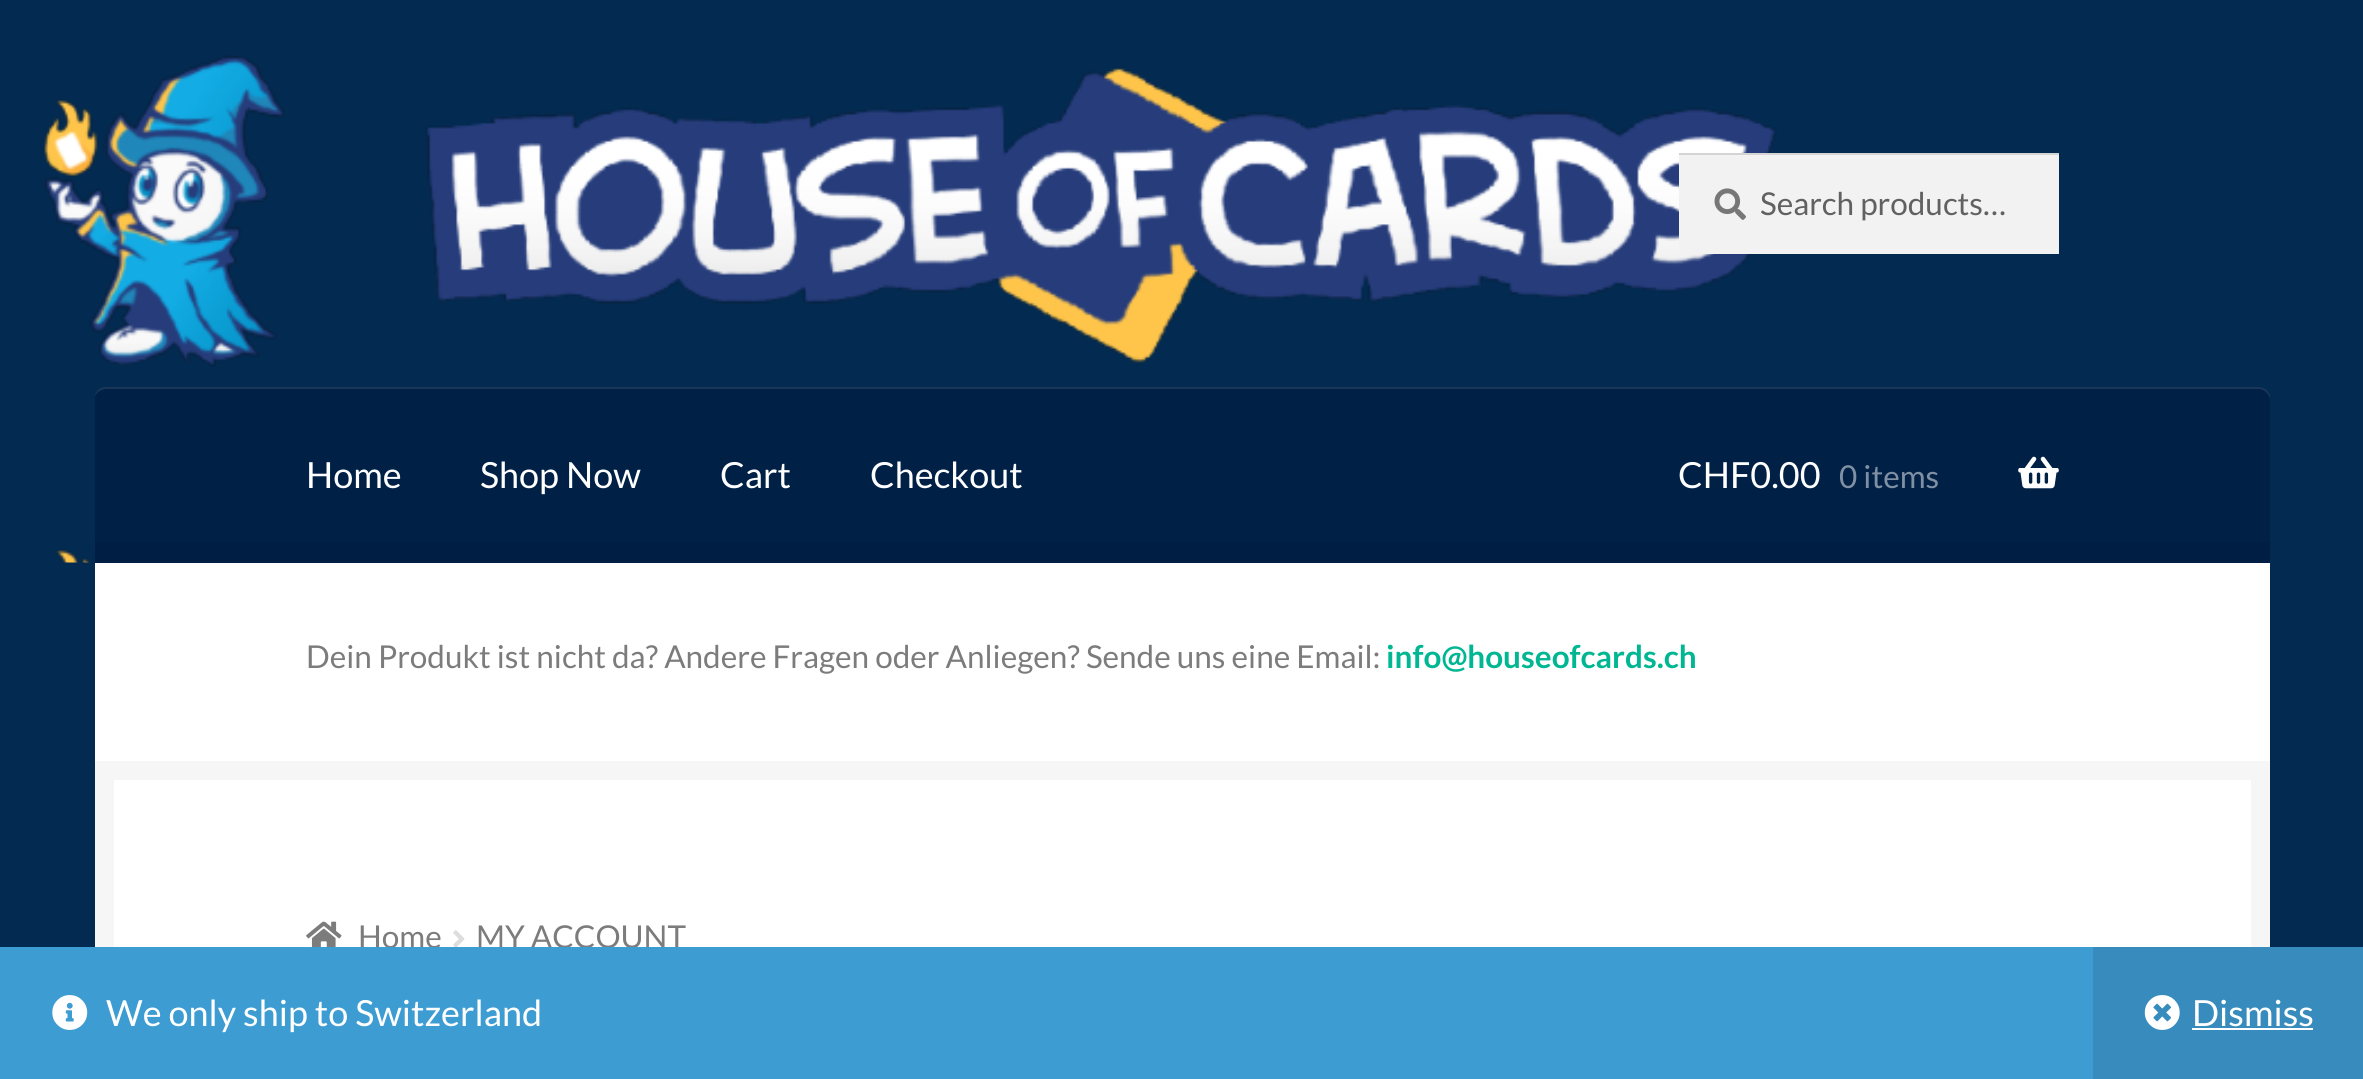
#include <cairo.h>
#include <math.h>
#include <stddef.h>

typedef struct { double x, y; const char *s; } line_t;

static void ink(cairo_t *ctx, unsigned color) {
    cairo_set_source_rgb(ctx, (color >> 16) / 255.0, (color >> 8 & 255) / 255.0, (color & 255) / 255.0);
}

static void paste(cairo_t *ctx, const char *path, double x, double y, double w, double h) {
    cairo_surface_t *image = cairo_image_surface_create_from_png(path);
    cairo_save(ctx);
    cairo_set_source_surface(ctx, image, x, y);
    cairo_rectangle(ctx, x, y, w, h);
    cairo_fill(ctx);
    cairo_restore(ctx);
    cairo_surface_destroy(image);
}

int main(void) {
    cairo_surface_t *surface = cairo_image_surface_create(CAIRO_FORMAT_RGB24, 2363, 1079);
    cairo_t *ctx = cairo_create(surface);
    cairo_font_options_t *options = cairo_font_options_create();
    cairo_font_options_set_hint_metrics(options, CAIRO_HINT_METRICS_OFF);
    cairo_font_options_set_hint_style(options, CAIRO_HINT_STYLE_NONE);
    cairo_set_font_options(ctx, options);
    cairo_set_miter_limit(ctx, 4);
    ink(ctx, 0x032A50);
    cairo_paint(ctx);
    paste(ctx, "media/1.png", 42, 55, 1735, 508);
    ink(ctx, 0xF2F2F2);
    cairo_rectangle(ctx, 1679, 155, 380, 99);
    cairo_fill(ctx);
    paste(ctx, "media/2.png", 1714, 188, 32, 32);
    ink(ctx, 0xD4D4D4);
    cairo_rectangle(ctx, 1679, 153, 380, 2);
    cairo_fill(ctx);
    cairo_select_font_face(ctx, "Lato", CAIRO_FONT_SLANT_NORMAL, CAIRO_FONT_WEIGHT_NORMAL);
    cairo_set_font_size(ctx, 31.5);
    ink(ctx, 0x616161);
    cairo_move_to(ctx, 1760, 215);
    cairo_show_text(ctx, "Search products…");
    ink(ctx, 0x002046);
    cairo_new_path(ctx);
    cairo_move_to(ctx, 106, 387);
    cairo_line_to(ctx, 2259, 387);
    cairo_curve_to(ctx, 2265, 387, 2270, 392, 2270, 398);
    cairo_line_to(ctx, 2270, 563);
    cairo_line_to(ctx, 95, 563);
    cairo_line_to(ctx, 95, 398);
    cairo_curve_to(ctx, 95, 392, 100, 387, 106, 387);
    cairo_close_path(ctx);
    cairo_fill(ctx);
    ink(ctx, 0x001E43);
    cairo_rectangle(ctx, 95, 543, 2175, 20);
    cairo_fill(ctx);
    cairo_set_source_rgba(ctx, 1, 1, 1, 0.1);
    cairo_new_path(ctx);
    cairo_move_to(ctx, 106, 389);
    cairo_line_to(ctx, 2258, 389);
    cairo_curve_to(ctx, 2265, 389, 2270, 395, 2270, 401);
    cairo_line_to(ctx, 2270, 398);
    cairo_curve_to(ctx, 2270, 392, 2265, 387, 2259, 387);
    cairo_line_to(ctx, 106, 387);
    cairo_curve_to(ctx, 100, 387, 96, 391, 95, 396);
    cairo_curve_to(ctx, 97, 392, 102, 389, 106, 389);
    cairo_close_path(ctx);
    cairo_fill(ctx);
    cairo_set_font_size(ctx, 36);
    ink(ctx, 0xFFFFFF);
    {
        static const line_t items[] = {
            {306, 488, "Home"},
            {480, 488, "Shop Now"},
            {720, 488, "Cart"},
            {870, 488, "Checkout"},
            {1678, 488, "CHF0.00"},
        };
        for (size_t i = 0; i < sizeof items / sizeof *items; i++) {
            cairo_move_to(ctx, items[i].x, items[i].y);
            cairo_show_text(ctx, items[i].s);
        }
    }
    cairo_set_font_size(ctx, 31.5);
    ink(ctx, 0x8090A3);
    cairo_move_to(ctx, 1839, 488);
    cairo_show_text(ctx, "0 items");
    paste(ctx, "media/3.png", 2018, 456, 41, 33);
    ink(ctx, 0xFFFFFF);
    cairo_rectangle(ctx, 95, 563, 2175, 198);
    cairo_fill(ctx);
    ink(ctx, 0x7C7C7C);
    cairo_move_to(ctx, 306, 668);
    cairo_show_text(ctx, "Dein Produkt ist nicht da? Andere Fragen oder Anliegen? Sende uns eine Email:");
    cairo_select_font_face(ctx, "Lato", CAIRO_FONT_SLANT_NORMAL, CAIRO_FONT_WEIGHT_BOLD);
    ink(ctx, 0x01B793);
    cairo_move_to(ctx, 1386, 668);
    cairo_show_text(ctx, "info@houseofcards.ch");
    ink(ctx, 0xFFFFFF);
    cairo_rectangle(ctx, 114, 780, 2137, 167);
    cairo_fill(ctx);
    cairo_rectangle(ctx, 104.5, 770.5, 2156, 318);
    ink(ctx, 0xF6F6F6);
    cairo_set_line_width(ctx, 19);
    cairo_stroke(ctx);
    paste(ctx, "media/4.png", 306, 921, 36, 26);
    cairo_select_font_face(ctx, "Lato", CAIRO_FONT_SLANT_NORMAL, CAIRO_FONT_WEIGHT_NORMAL);
    ink(ctx, 0x7C7C7C);
    cairo_move_to(ctx, 358, 948);
    cairo_show_text(ctx, "Home");
    paste(ctx, "media/5.png", 453, 930, 12, 17);
    cairo_move_to(ctx, 476, 948);
    cairo_show_text(ctx, "MY ACCOUNT");
    ink(ctx, 0x3D9CD2);
    cairo_rectangle(ctx, 0, 947, 2093, 132);
    cairo_fill(ctx);
    paste(ctx, "media/6.png", 52, 995, 36, 35);
    cairo_set_font_size(ctx, 36);
    ink(ctx, 0xFFFFFF);
    cairo_move_to(ctx, 106, 1026);
    cairo_show_text(ctx, "We only ship to Switzerland");
    ink(ctx, 0x378CBD);
    cairo_rectangle(ctx, 2093, 947, 270, 132);
    cairo_fill(ctx);
    paste(ctx, "media/7.png", 2144, 995, 36, 35);
    ink(ctx, 0xFFFFFF);
    cairo_move_to(ctx, 2192, 1026);
    cairo_show_text(ctx, "Dismiss");
    cairo_rectangle(ctx, 2192, 1028, 121, 2);
    cairo_fill(ctx);
    cairo_surface_write_to_png(surface, "image.png");
    cairo_font_options_destroy(options);
    cairo_destroy(ctx);
    cairo_surface_destroy(surface);
    return 0;
}
